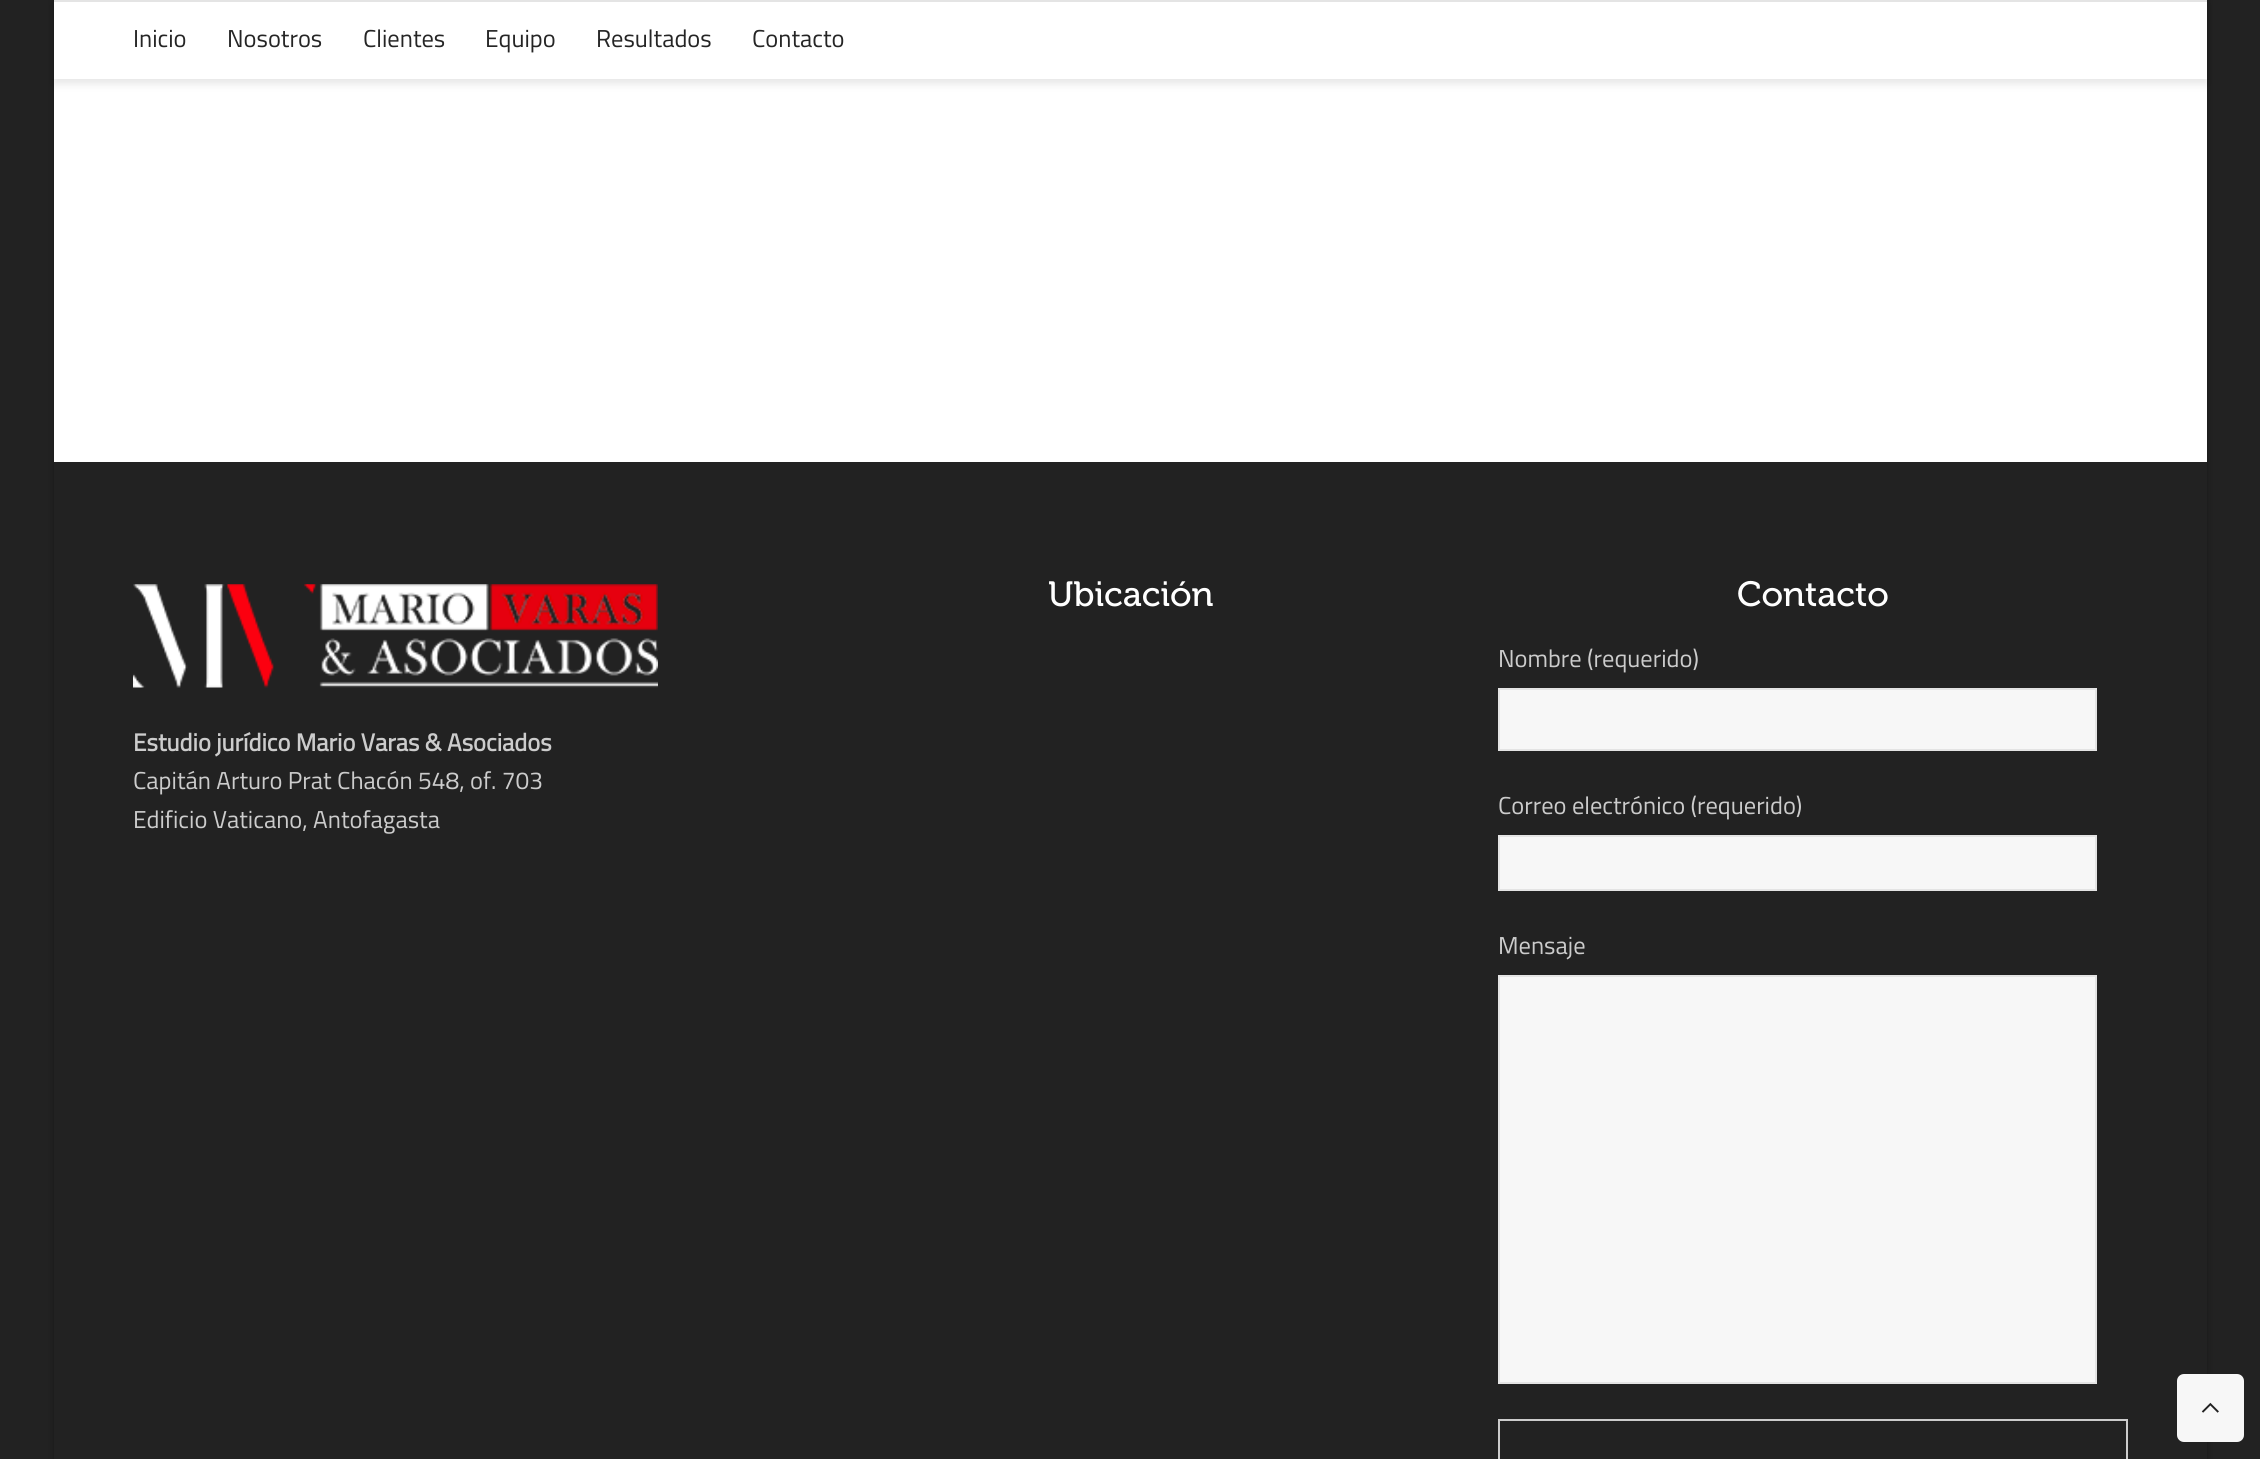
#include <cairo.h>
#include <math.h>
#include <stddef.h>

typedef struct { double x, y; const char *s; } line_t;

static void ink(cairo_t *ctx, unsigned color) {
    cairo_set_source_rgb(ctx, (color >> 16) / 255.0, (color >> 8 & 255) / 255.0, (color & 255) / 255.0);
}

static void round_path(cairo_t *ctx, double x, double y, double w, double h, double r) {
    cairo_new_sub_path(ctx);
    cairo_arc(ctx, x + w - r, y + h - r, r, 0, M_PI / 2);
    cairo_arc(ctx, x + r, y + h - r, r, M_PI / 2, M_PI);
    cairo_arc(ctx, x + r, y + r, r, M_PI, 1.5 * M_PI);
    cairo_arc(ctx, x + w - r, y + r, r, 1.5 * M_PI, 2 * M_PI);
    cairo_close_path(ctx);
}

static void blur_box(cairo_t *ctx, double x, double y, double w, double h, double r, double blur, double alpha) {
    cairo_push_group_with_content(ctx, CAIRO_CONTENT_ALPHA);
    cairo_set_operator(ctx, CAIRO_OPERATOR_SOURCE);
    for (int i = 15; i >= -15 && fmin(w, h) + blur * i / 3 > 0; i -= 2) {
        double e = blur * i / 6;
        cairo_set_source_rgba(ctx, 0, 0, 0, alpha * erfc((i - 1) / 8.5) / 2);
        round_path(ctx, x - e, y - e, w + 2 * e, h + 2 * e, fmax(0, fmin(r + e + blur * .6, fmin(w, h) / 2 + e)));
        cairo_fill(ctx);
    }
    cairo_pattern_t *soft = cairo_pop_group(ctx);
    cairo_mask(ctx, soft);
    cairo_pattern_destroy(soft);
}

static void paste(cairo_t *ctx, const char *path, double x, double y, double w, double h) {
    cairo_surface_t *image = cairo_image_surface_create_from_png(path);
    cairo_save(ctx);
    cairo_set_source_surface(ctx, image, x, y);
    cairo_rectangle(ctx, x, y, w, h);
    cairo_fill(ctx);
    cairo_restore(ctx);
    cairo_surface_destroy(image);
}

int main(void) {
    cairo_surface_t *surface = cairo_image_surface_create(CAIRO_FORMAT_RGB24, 2260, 1459);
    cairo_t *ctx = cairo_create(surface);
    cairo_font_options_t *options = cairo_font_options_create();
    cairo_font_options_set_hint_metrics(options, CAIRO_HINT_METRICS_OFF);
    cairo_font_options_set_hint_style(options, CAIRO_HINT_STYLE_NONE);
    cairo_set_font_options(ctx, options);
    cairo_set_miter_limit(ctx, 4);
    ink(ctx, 0x222222);
    cairo_paint(ctx);
    ink(ctx, 0x000000);
    blur_box(ctx, 54, -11, 2153, 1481, 0, 3.5, 0.3);
    ink(ctx, 0xFFFFFF);
    cairo_rectangle(ctx, 54, 79, 2153, 383);
    cairo_fill(ctx);
    ink(ctx, 0x000000);
    blur_box(ctx, 54, 5, 2153, 79, 0, 4.5, 0.1);
    ink(ctx, 0xFFFFFF);
    cairo_rectangle(ctx, 54, 2, 2153, 77);
    cairo_fill(ctx);
    ink(ctx, 0xE4E4E4);
    cairo_rectangle(ctx, 54, 0, 2153, 2);
    cairo_fill(ctx);
    cairo_select_font_face(ctx, "Titillium Web", CAIRO_FONT_SLANT_NORMAL, CAIRO_FONT_WEIGHT_NORMAL);
    cairo_set_font_size(ctx, 24.5);
    ink(ctx, 0x252525);
    {
        static const line_t items[] = {
            {133, 47, "Inicio"},
            {227, 47, "Nosotros"},
            {363, 47, "Clientes"},
            {485, 47, "Equipo"},
            {596, 47, "Resultados"},
            {752, 47, "Contacto"},
        };
        for (size_t i = 0; i < sizeof items / sizeof *items; i++) {
            cairo_move_to(ctx, items[i].x, items[i].y);
            cairo_show_text(ctx, items[i].s);
        }
    }
    ink(ctx, 0x222222);
    cairo_rectangle(ctx, 54, 462, 2153, 997);
    cairo_fill(ctx);
    cairo_select_font_face(ctx, "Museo", CAIRO_FONT_SLANT_NORMAL, CAIRO_FONT_WEIGHT_NORMAL);
    cairo_set_font_size(ctx, 35);
    ink(ctx, 0xFFFFFF);
    cairo_move_to(ctx, 1048, 606);
    cairo_show_text(ctx, "Ubicación");
    cairo_move_to(ctx, 1737, 606);
    cairo_show_text(ctx, "Contacto");
    cairo_select_font_face(ctx, "Titillium Web", CAIRO_FONT_SLANT_NORMAL, CAIRO_FONT_WEIGHT_NORMAL);
    cairo_set_font_size(ctx, 24.5);
    ink(ctx, 0xCCCCCC);
    cairo_move_to(ctx, 1498, 667);
    cairo_show_text(ctx, "Nombre (requerido)");
    ink(ctx, 0xF7F7F7);
    cairo_rectangle(ctx, 1499, 689, 597, 61);
    cairo_fill_preserve(ctx);
    ink(ctx, 0xE4E4E4);
    cairo_stroke(ctx);
    ink(ctx, 0xCCCCCC);
    cairo_move_to(ctx, 1498, 814);
    cairo_show_text(ctx, "Correo electrónico (requerido)");
    ink(ctx, 0xF7F7F7);
    cairo_rectangle(ctx, 1499, 836, 597, 54);
    cairo_fill_preserve(ctx);
    ink(ctx, 0xE4E4E4);
    cairo_stroke(ctx);
    ink(ctx, 0xCCCCCC);
    cairo_move_to(ctx, 1498, 954);
    cairo_show_text(ctx, "Mensaje");
    ink(ctx, 0xF7F7F7);
    cairo_rectangle(ctx, 1499, 976, 597, 407);
    cairo_fill_preserve(ctx);
    ink(ctx, 0xE4E4E4);
    cairo_stroke(ctx);
    cairo_rectangle(ctx, 1499, 1420, 628, 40);
    ink(ctx, 0xCCCCCC);
    cairo_stroke(ctx);
    paste(ctx, "media/1.png", 133, 584, 525, 104);
    cairo_select_font_face(ctx, "Titillium Web", CAIRO_FONT_SLANT_NORMAL, CAIRO_FONT_WEIGHT_BOLD);
    cairo_move_to(ctx, 133, 751);
    cairo_show_text(ctx, "Estudio jurídico Mario Varas & Asociados");
    cairo_select_font_face(ctx, "Titillium Web", CAIRO_FONT_SLANT_NORMAL, CAIRO_FONT_WEIGHT_NORMAL);
    cairo_move_to(ctx, 133, 789);
    cairo_show_text(ctx, "Capitán Arturo Prat Chacón 548, of. 703");
    cairo_move_to(ctx, 133, 828);
    cairo_show_text(ctx, "Edificio Vaticano, Antofagasta");
    ink(ctx, 0xF7F7F7);
    round_path(ctx, 2177, 1374, 67, 68, 7);
    cairo_fill(ctx);
    paste(ctx, "media/2.png", 2201, 1402, 18, 11);
    cairo_surface_write_to_png(surface, "image.png");
    cairo_font_options_destroy(options);
    cairo_destroy(ctx);
    cairo_surface_destroy(surface);
    return 0;
}
